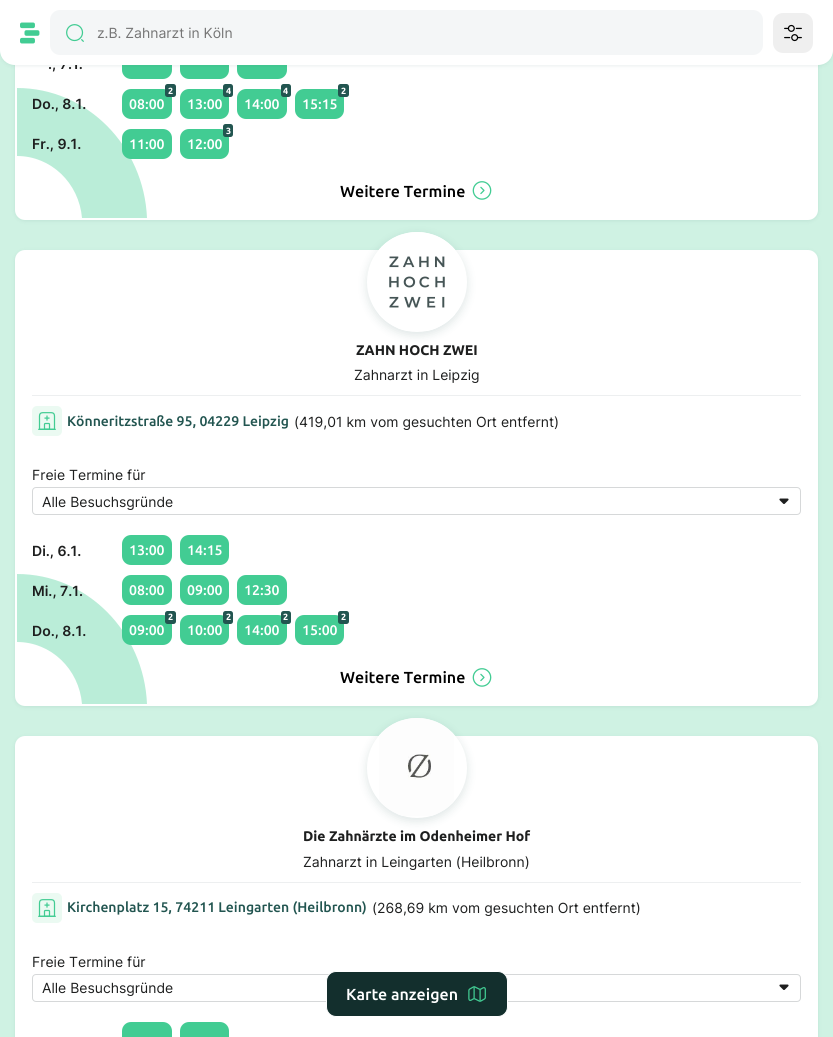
#include <cairo.h>
#include <math.h>
#include <stddef.h>


static void ink(cairo_t *ctx, unsigned color) {
    cairo_set_source_rgb(ctx, (color >> 16) / 255.0, (color >> 8 & 255) / 255.0, (color & 255) / 255.0);
}

static void round_path(cairo_t *ctx, double x, double y, double w, double h, double r) {
    cairo_new_sub_path(ctx);
    cairo_arc(ctx, x + w - r, y + h - r, r, 0, M_PI / 2);
    cairo_arc(ctx, x + r, y + h - r, r, M_PI / 2, M_PI);
    cairo_arc(ctx, x + r, y + r, r, M_PI, 1.5 * M_PI);
    cairo_arc(ctx, x + w - r, y + r, r, 1.5 * M_PI, 2 * M_PI);
    cairo_close_path(ctx);
}

static void blur_box(cairo_t *ctx, double x, double y, double w, double h, double r, double blur, double alpha) {
    cairo_push_group_with_content(ctx, CAIRO_CONTENT_ALPHA);
    cairo_set_operator(ctx, CAIRO_OPERATOR_SOURCE);
    for (int i = 15; i >= -15 && fmin(w, h) + blur * i / 3 > 0; i -= 2) {
        double e = blur * i / 6;
        cairo_set_source_rgba(ctx, 0, 0, 0, alpha * erfc((i - 1) / 8.5) / 2);
        round_path(ctx, x - e, y - e, w + 2 * e, h + 2 * e, fmax(0, fmin(r + e + blur * .6, fmin(w, h) / 2 + e)));
        cairo_fill(ctx);
    }
    cairo_pattern_t *soft = cairo_pop_group(ctx);
    cairo_mask(ctx, soft);
    cairo_pattern_destroy(soft);
}

static void paste(cairo_t *ctx, const char *path, double x, double y, double w, double h) {
    cairo_surface_t *image = cairo_image_surface_create_from_png(path);
    cairo_save(ctx);
    cairo_set_source_surface(ctx, image, x, y);
    cairo_rectangle(ctx, x, y, w, h);
    cairo_fill(ctx);
    cairo_restore(ctx);
    cairo_surface_destroy(image);
}

int main(void) {
    cairo_surface_t *surface = cairo_image_surface_create(CAIRO_FORMAT_RGB24, 833, 1037);
    cairo_t *ctx = cairo_create(surface);
    cairo_font_options_t *options = cairo_font_options_create();
    cairo_font_options_set_hint_metrics(options, CAIRO_HINT_METRICS_OFF);
    cairo_font_options_set_hint_style(options, CAIRO_HINT_STYLE_NONE);
    cairo_set_font_options(ctx, options);
    cairo_set_miter_limit(ctx, 4);
    ink(ctx, 0xCFF2E3);
    cairo_paint(ctx);
    ink(ctx, 0x225550);
    blur_box(ctx, 15, -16, 803, 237, 10, 2, 0.1);
    ink(ctx, 0xFFFFFF);
    round_path(ctx, 15, -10, 803, 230, 10);
    cairo_fill(ctx);
    ink(ctx, 0x42CC93);
    round_path(ctx, 122, 49, 50, 30, 9);
    cairo_fill(ctx);
    round_path(ctx, 180, 49, 49, 30, 9);
    cairo_fill(ctx);
    round_path(ctx, 237, 49, 50, 30, 9);
    cairo_fill(ctx);
    ink(ctx, 0x225550);
    blur_box(ctx, 0, 1, 833, 65, 15, 2, 0.1);
    cairo_select_font_face(ctx, "Inter SemiBold", CAIRO_FONT_SLANT_NORMAL, CAIRO_FONT_WEIGHT_NORMAL);
    cairo_set_font_size(ctx, 14);
    ink(ctx, 0x1E1F1F);
    cairo_move_to(ctx, 48, 69);
    cairo_show_text(ctx, "., 7.1.");
    ink(ctx, 0xFFFFFF);
    cairo_new_path(ctx);
    cairo_move_to(ctx, 0, 0);
    cairo_line_to(ctx, 833, 0);
    cairo_line_to(ctx, 833, 50);
    cairo_curve_to(ctx, 833, 58.5, 826.5, 65, 818, 65);
    cairo_line_to(ctx, 15, 65);
    cairo_curve_to(ctx, 6.5, 65, 0, 58.5, 0, 50);
    cairo_close_path(ctx);
    cairo_fill(ctx);
    paste(ctx, "media/1.png", 20, 22, 20, 22);
    ink(ctx, 0xF4F6F7);
    round_path(ctx, 50, 10, 713, 45, 10);
    cairo_fill(ctx);
    paste(ctx, "media/2.png", 66, 24, 18, 18);
    cairo_select_font_face(ctx, "Inter", CAIRO_FONT_SLANT_NORMAL, CAIRO_FONT_WEIGHT_NORMAL);
    ink(ctx, 0x757575);
    cairo_move_to(ctx, 97, 38);
    cairo_show_text(ctx, "z.B. Zahnarzt in Köln");
    ink(ctx, 0xEFEFEF);
    round_path(ctx, 773, 13, 40, 40, 10);
    cairo_fill(ctx);
    paste(ctx, "media/3.png", 784, 24, 18, 18);
    ink(ctx, 0xBAEDD8);
    cairo_set_fill_rule(ctx, CAIRO_FILL_RULE_EVEN_ODD);
    cairo_new_path(ctx);
    cairo_move_to(ctx, 147, 218);
    cairo_curve_to(ctx, 144, 146, 87, 88, 17, 88);
    cairo_line_to(ctx, 17, 156);
    cairo_curve_to(ctx, 51, 156, 79, 183, 82, 218);
    cairo_close_path(ctx);
    cairo_fill(ctx);
    cairo_select_font_face(ctx, "Inter SemiBold", CAIRO_FONT_SLANT_NORMAL, CAIRO_FONT_WEIGHT_NORMAL);
    ink(ctx, 0x1E1F1F);
    cairo_move_to(ctx, 32, 109);
    cairo_show_text(ctx, "Do., 8.1.");
    ink(ctx, 0x42CC93);
    round_path(ctx, 122, 89, 50, 30, 9);
    cairo_fill(ctx);
    ink(ctx, 0x225550);
    round_path(ctx, 165, 84, 11, 13, 2.5);
    cairo_fill(ctx);
    cairo_select_font_face(ctx, "Ubuntu", CAIRO_FONT_SLANT_NORMAL, CAIRO_FONT_WEIGHT_BOLD);
    cairo_set_font_size(ctx, 9);
    ink(ctx, 0xFFFFFF);
    cairo_move_to(ctx, 168, 94);
    cairo_show_text(ctx, "2");
    cairo_select_font_face(ctx, "Ubuntu Medium", CAIRO_FONT_SLANT_NORMAL, CAIRO_FONT_WEIGHT_NORMAL);
    cairo_set_font_size(ctx, 14);
    cairo_move_to(ctx, 129, 109);
    cairo_show_text(ctx, "08:00");
    ink(ctx, 0x42CC93);
    round_path(ctx, 180, 89, 49, 30, 9);
    cairo_fill(ctx);
    ink(ctx, 0x225550);
    round_path(ctx, 223, 84, 10, 13, 2.5);
    cairo_fill(ctx);
    cairo_select_font_face(ctx, "Ubuntu", CAIRO_FONT_SLANT_NORMAL, CAIRO_FONT_WEIGHT_BOLD);
    cairo_set_font_size(ctx, 9);
    ink(ctx, 0xFFFFFF);
    cairo_move_to(ctx, 226, 94);
    cairo_show_text(ctx, "4");
    cairo_select_font_face(ctx, "Ubuntu Medium", CAIRO_FONT_SLANT_NORMAL, CAIRO_FONT_WEIGHT_NORMAL);
    cairo_set_font_size(ctx, 14);
    cairo_move_to(ctx, 187, 109);
    cairo_show_text(ctx, "13:00");
    ink(ctx, 0x42CC93);
    round_path(ctx, 237, 89, 50, 30, 9);
    cairo_fill(ctx);
    ink(ctx, 0x225550);
    round_path(ctx, 281, 84, 10, 13, 2.5);
    cairo_fill(ctx);
    cairo_select_font_face(ctx, "Ubuntu", CAIRO_FONT_SLANT_NORMAL, CAIRO_FONT_WEIGHT_BOLD);
    cairo_set_font_size(ctx, 9);
    ink(ctx, 0xFFFFFF);
    cairo_move_to(ctx, 283, 94);
    cairo_show_text(ctx, "4");
    cairo_select_font_face(ctx, "Ubuntu Medium", CAIRO_FONT_SLANT_NORMAL, CAIRO_FONT_WEIGHT_NORMAL);
    cairo_set_font_size(ctx, 14);
    cairo_move_to(ctx, 244, 109);
    cairo_show_text(ctx, "14:00");
    ink(ctx, 0x42CC93);
    round_path(ctx, 295, 89, 49, 30, 9);
    cairo_fill(ctx);
    ink(ctx, 0x225550);
    round_path(ctx, 338, 84, 11, 13, 2.5);
    cairo_fill(ctx);
    cairo_select_font_face(ctx, "Ubuntu", CAIRO_FONT_SLANT_NORMAL, CAIRO_FONT_WEIGHT_BOLD);
    cairo_set_font_size(ctx, 9);
    ink(ctx, 0xFFFFFF);
    cairo_move_to(ctx, 341, 94);
    cairo_show_text(ctx, "2");
    cairo_select_font_face(ctx, "Ubuntu Medium", CAIRO_FONT_SLANT_NORMAL, CAIRO_FONT_WEIGHT_NORMAL);
    cairo_set_font_size(ctx, 14);
    cairo_move_to(ctx, 302, 109);
    cairo_show_text(ctx, "15:15");
    cairo_select_font_face(ctx, "Inter SemiBold", CAIRO_FONT_SLANT_NORMAL, CAIRO_FONT_WEIGHT_NORMAL);
    ink(ctx, 0x1E1F1F);
    cairo_move_to(ctx, 32, 149);
    cairo_show_text(ctx, "Fr., 9.1.");
    ink(ctx, 0x42CC93);
    round_path(ctx, 122, 129, 50, 30, 9);
    cairo_fill(ctx);
    cairo_select_font_face(ctx, "Ubuntu Medium", CAIRO_FONT_SLANT_NORMAL, CAIRO_FONT_WEIGHT_NORMAL);
    ink(ctx, 0xFFFFFF);
    cairo_move_to(ctx, 129, 149);
    cairo_show_text(ctx, "11:00");
    ink(ctx, 0x42CC93);
    round_path(ctx, 180, 129, 49, 30, 9);
    cairo_fill(ctx);
    ink(ctx, 0x225550);
    round_path(ctx, 223, 124, 10, 13, 2.5);
    cairo_fill(ctx);
    cairo_select_font_face(ctx, "Ubuntu", CAIRO_FONT_SLANT_NORMAL, CAIRO_FONT_WEIGHT_BOLD);
    cairo_set_font_size(ctx, 9);
    ink(ctx, 0xFFFFFF);
    cairo_move_to(ctx, 226, 134);
    cairo_show_text(ctx, "3");
    cairo_select_font_face(ctx, "Ubuntu Medium", CAIRO_FONT_SLANT_NORMAL, CAIRO_FONT_WEIGHT_NORMAL);
    cairo_set_font_size(ctx, 14);
    cairo_move_to(ctx, 187, 149);
    cairo_show_text(ctx, "12:00");
    cairo_set_font_size(ctx, 16);
    ink(ctx, 0x000000);
    cairo_move_to(ctx, 340, 197);
    cairo_show_text(ctx, "Weitere Termine");
    paste(ctx, "media/4.png", 472, 181, 20, 19);
    ink(ctx, 0x225550);
    blur_box(ctx, 15, 251, 803, 456, 10, 2, 0.1);
    ink(ctx, 0xFFFFFF);
    round_path(ctx, 15, 250, 803, 456, 10);
    cairo_fill(ctx);
    ink(ctx, 0x225550);
    blur_box(ctx, 367, 235, 100, 100, 50, 5, 0.15);
    ink(ctx, 0xFFFFFF);
    cairo_arc(ctx, 417, 282, 50, 0, 2 * M_PI);
    cairo_fill(ctx);
    paste(ctx, "media/5.png", 379, 232, 76, 99);
    cairo_select_font_face(ctx, "Ubuntu", CAIRO_FONT_SLANT_NORMAL, CAIRO_FONT_WEIGHT_BOLD);
    cairo_set_font_size(ctx, 14);
    ink(ctx, 0x1E1F1F);
    cairo_move_to(ctx, 356, 355);
    cairo_show_text(ctx, "ZAHN HOCH ZWEI");
    cairo_select_font_face(ctx, "Inter", CAIRO_FONT_SLANT_NORMAL, CAIRO_FONT_WEIGHT_NORMAL);
    cairo_move_to(ctx, 354, 380);
    cairo_show_text(ctx, "Zahnarzt in Leipzig");
    ink(ctx, 0xEDEFF0);
    cairo_rectangle(ctx, 32, 395, 769, 1);
    cairo_fill(ctx);
    ink(ctx, 0xEBFAF2);
    round_path(ctx, 32, 406, 30, 30, 5);
    cairo_fill(ctx);
    paste(ctx, "media/6.png", 38, 412, 18, 18);
    cairo_select_font_face(ctx, "Ubuntu Medium", CAIRO_FONT_SLANT_NORMAL, CAIRO_FONT_WEIGHT_NORMAL);
    ink(ctx, 0x225550);
    cairo_move_to(ctx, 67, 426);
    cairo_show_text(ctx, "Könneritzstraße 95, 04229 Leipzig");
    cairo_select_font_face(ctx, "Inter", CAIRO_FONT_SLANT_NORMAL, CAIRO_FONT_WEIGHT_NORMAL);
    ink(ctx, 0x1E1F1F);
    cairo_move_to(ctx, 294, 427);
    cairo_show_text(ctx, "(419,01 km vom gesuchten Ort entfernt)");
    cairo_move_to(ctx, 32, 480);
    cairo_show_text(ctx, "Freie Termine für");
    paste(ctx, "media/7.png", 779, 498, 10, 6);
    round_path(ctx, 32.5, 487.5, 768, 27, 3.5);
    ink(ctx, 0xD6D8D9);
    cairo_set_line_width(ctx, 1);
    cairo_stroke(ctx);
    ink(ctx, 0x1E1F1F);
    cairo_move_to(ctx, 42, 507);
    cairo_show_text(ctx, "Alle Besuchsgründe");
    cairo_select_font_face(ctx, "Inter SemiBold", CAIRO_FONT_SLANT_NORMAL, CAIRO_FONT_WEIGHT_NORMAL);
    cairo_move_to(ctx, 32, 556);
    cairo_show_text(ctx, "Di., 6.1.");
    ink(ctx, 0x42CC93);
    round_path(ctx, 122, 535, 50, 30, 9);
    cairo_fill(ctx);
    cairo_select_font_face(ctx, "Ubuntu Medium", CAIRO_FONT_SLANT_NORMAL, CAIRO_FONT_WEIGHT_NORMAL);
    ink(ctx, 0xFFFFFF);
    cairo_move_to(ctx, 129, 555);
    cairo_show_text(ctx, "13:00");
    ink(ctx, 0x42CC93);
    round_path(ctx, 180, 535, 49, 30, 9);
    cairo_fill(ctx);
    ink(ctx, 0xFFFFFF);
    cairo_move_to(ctx, 187, 555);
    cairo_show_text(ctx, "14:15");
    ink(ctx, 0xBAEDD8);
    cairo_new_path(ctx);
    cairo_move_to(ctx, 147, 704);
    cairo_curve_to(ctx, 144, 632, 87, 574, 17, 574);
    cairo_line_to(ctx, 17, 642);
    cairo_curve_to(ctx, 51, 642, 79, 669, 82, 704);
    cairo_close_path(ctx);
    cairo_fill(ctx);
    cairo_select_font_face(ctx, "Inter SemiBold", CAIRO_FONT_SLANT_NORMAL, CAIRO_FONT_WEIGHT_NORMAL);
    ink(ctx, 0x1E1F1F);
    cairo_move_to(ctx, 32, 596);
    cairo_show_text(ctx, "Mi., 7.1.");
    ink(ctx, 0x42CC93);
    round_path(ctx, 122, 575, 50, 30, 9);
    cairo_fill(ctx);
    cairo_select_font_face(ctx, "Ubuntu Medium", CAIRO_FONT_SLANT_NORMAL, CAIRO_FONT_WEIGHT_NORMAL);
    ink(ctx, 0xFFFFFF);
    cairo_move_to(ctx, 129, 595);
    cairo_show_text(ctx, "08:00");
    ink(ctx, 0x42CC93);
    round_path(ctx, 180, 575, 49, 30, 9);
    cairo_fill(ctx);
    ink(ctx, 0xFFFFFF);
    cairo_move_to(ctx, 187, 595);
    cairo_show_text(ctx, "09:00");
    ink(ctx, 0x42CC93);
    round_path(ctx, 237, 575, 50, 30, 9);
    cairo_fill(ctx);
    ink(ctx, 0xFFFFFF);
    cairo_move_to(ctx, 244, 595);
    cairo_show_text(ctx, "12:30");
    cairo_select_font_face(ctx, "Inter SemiBold", CAIRO_FONT_SLANT_NORMAL, CAIRO_FONT_WEIGHT_NORMAL);
    ink(ctx, 0x1E1F1F);
    cairo_move_to(ctx, 32, 636);
    cairo_show_text(ctx, "Do., 8.1.");
    ink(ctx, 0x42CC93);
    round_path(ctx, 122, 615, 50, 30, 9);
    cairo_fill(ctx);
    ink(ctx, 0x225550);
    round_path(ctx, 165, 611, 11, 13, 2.5);
    cairo_fill(ctx);
    cairo_select_font_face(ctx, "Ubuntu", CAIRO_FONT_SLANT_NORMAL, CAIRO_FONT_WEIGHT_BOLD);
    cairo_set_font_size(ctx, 9);
    ink(ctx, 0xFFFFFF);
    cairo_move_to(ctx, 168, 620);
    cairo_show_text(ctx, "2");
    cairo_select_font_face(ctx, "Ubuntu Medium", CAIRO_FONT_SLANT_NORMAL, CAIRO_FONT_WEIGHT_NORMAL);
    cairo_set_font_size(ctx, 14);
    cairo_move_to(ctx, 129, 635);
    cairo_show_text(ctx, "09:00");
    ink(ctx, 0x42CC93);
    round_path(ctx, 180, 615, 49, 30, 9);
    cairo_fill(ctx);
    ink(ctx, 0x225550);
    round_path(ctx, 223, 611, 10, 13, 2.5);
    cairo_fill(ctx);
    cairo_select_font_face(ctx, "Ubuntu", CAIRO_FONT_SLANT_NORMAL, CAIRO_FONT_WEIGHT_BOLD);
    cairo_set_font_size(ctx, 9);
    ink(ctx, 0xFFFFFF);
    cairo_move_to(ctx, 226, 620);
    cairo_show_text(ctx, "2");
    cairo_select_font_face(ctx, "Ubuntu Medium", CAIRO_FONT_SLANT_NORMAL, CAIRO_FONT_WEIGHT_NORMAL);
    cairo_set_font_size(ctx, 14);
    cairo_move_to(ctx, 187, 635);
    cairo_show_text(ctx, "10:00");
    ink(ctx, 0x42CC93);
    round_path(ctx, 237, 615, 50, 30, 9);
    cairo_fill(ctx);
    ink(ctx, 0x225550);
    round_path(ctx, 281, 611, 10, 13, 2.5);
    cairo_fill(ctx);
    cairo_select_font_face(ctx, "Ubuntu", CAIRO_FONT_SLANT_NORMAL, CAIRO_FONT_WEIGHT_BOLD);
    cairo_set_font_size(ctx, 9);
    ink(ctx, 0xFFFFFF);
    cairo_move_to(ctx, 283, 620);
    cairo_show_text(ctx, "2");
    cairo_select_font_face(ctx, "Ubuntu Medium", CAIRO_FONT_SLANT_NORMAL, CAIRO_FONT_WEIGHT_NORMAL);
    cairo_set_font_size(ctx, 14);
    cairo_move_to(ctx, 244, 635);
    cairo_show_text(ctx, "14:00");
    ink(ctx, 0x42CC93);
    round_path(ctx, 295, 615, 49, 30, 9);
    cairo_fill(ctx);
    ink(ctx, 0x225550);
    round_path(ctx, 338, 611, 11, 13, 2.5);
    cairo_fill(ctx);
    cairo_select_font_face(ctx, "Ubuntu", CAIRO_FONT_SLANT_NORMAL, CAIRO_FONT_WEIGHT_BOLD);
    cairo_set_font_size(ctx, 9);
    ink(ctx, 0xFFFFFF);
    cairo_move_to(ctx, 341, 620);
    cairo_show_text(ctx, "2");
    cairo_select_font_face(ctx, "Ubuntu Medium", CAIRO_FONT_SLANT_NORMAL, CAIRO_FONT_WEIGHT_NORMAL);
    cairo_set_font_size(ctx, 14);
    cairo_move_to(ctx, 302, 635);
    cairo_show_text(ctx, "15:00");
    cairo_set_font_size(ctx, 16);
    ink(ctx, 0x000000);
    cairo_move_to(ctx, 340, 683);
    cairo_show_text(ctx, "Weitere Termine");
    paste(ctx, "media/4.png", 472, 668, 20, 19);
    ink(ctx, 0x225550);
    blur_box(ctx, 15, 737, 803, 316, 10, 2, 0.1);
    ink(ctx, 0xFFFFFF);
    round_path(ctx, 15, 736, 803, 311, 10);
    cairo_fill(ctx);
    ink(ctx, 0x225550);
    blur_box(ctx, 367, 721, 100, 100, 50, 5, 0.15);
    ink(ctx, 0xFFFFFF);
    cairo_arc(ctx, 417, 768, 50, 0, 2 * M_PI);
    cairo_fill(ctx);
    paste(ctx, "media/8.png", 379, 718, 75, 98);
    cairo_select_font_face(ctx, "Ubuntu", CAIRO_FONT_SLANT_NORMAL, CAIRO_FONT_WEIGHT_BOLD);
    cairo_set_font_size(ctx, 14);
    ink(ctx, 0x1E1F1F);
    cairo_move_to(ctx, 303, 841);
    cairo_show_text(ctx, "Die Zahnärzte im Odenheimer Hof");
    cairo_select_font_face(ctx, "Inter", CAIRO_FONT_SLANT_NORMAL, CAIRO_FONT_WEIGHT_NORMAL);
    cairo_move_to(ctx, 303, 867);
    cairo_show_text(ctx, "Zahnarzt in Leingarten (Heilbronn)");
    ink(ctx, 0xEDEFF0);
    cairo_rectangle(ctx, 32, 882, 769, 1);
    cairo_fill(ctx);
    ink(ctx, 0xEBFAF2);
    round_path(ctx, 32, 893, 30, 30, 5);
    cairo_fill(ctx);
    paste(ctx, "media/6.png", 38, 899, 18, 18);
    cairo_select_font_face(ctx, "Ubuntu Medium", CAIRO_FONT_SLANT_NORMAL, CAIRO_FONT_WEIGHT_NORMAL);
    ink(ctx, 0x225550);
    cairo_move_to(ctx, 67, 912);
    cairo_show_text(ctx, "Kirchenplatz 15, 74211 Leingarten (Heilbronn)");
    cairo_select_font_face(ctx, "Inter", CAIRO_FONT_SLANT_NORMAL, CAIRO_FONT_WEIGHT_NORMAL);
    ink(ctx, 0x1E1F1F);
    cairo_move_to(ctx, 372, 913);
    cairo_show_text(ctx, "(268,69 km vom gesuchten Ort entfernt)");
    cairo_move_to(ctx, 32, 967);
    cairo_show_text(ctx, "Freie Termine für");
    paste(ctx, "media/7.png", 779, 984, 10, 6);
    round_path(ctx, 32.5, 974.5, 768, 27, 3.5);
    ink(ctx, 0xD6D8D9);
    cairo_stroke(ctx);
    ink(ctx, 0x1E1F1F);
    cairo_move_to(ctx, 42, 993);
    cairo_show_text(ctx, "Alle Besuchsgründe");
    ink(ctx, 0x42CC93);
    round_path(ctx, 122, 1022, 50, 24, 9);
    cairo_fill(ctx);
    round_path(ctx, 180, 1022, 49, 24, 9);
    cairo_fill(ctx);
    ink(ctx, 0x132F2D);
    round_path(ctx, 326.5, 971.5, 181, 45, 9.5);
    cairo_fill_preserve(ctx);
    ink(ctx, 0xFFFFFF);
    cairo_stroke(ctx);
    cairo_select_font_face(ctx, "Ubuntu Medium", CAIRO_FONT_SLANT_NORMAL, CAIRO_FONT_WEIGHT_NORMAL);
    cairo_set_font_size(ctx, 16);
    cairo_move_to(ctx, 346, 1000);
    cairo_show_text(ctx, "Karte anzeigen");
    paste(ctx, "media/9.png", 468, 986, 18, 16);
    cairo_surface_write_to_png(surface, "image.png");
    cairo_font_options_destroy(options);
    cairo_destroy(ctx);
    cairo_surface_destroy(surface);
    return 0;
}
